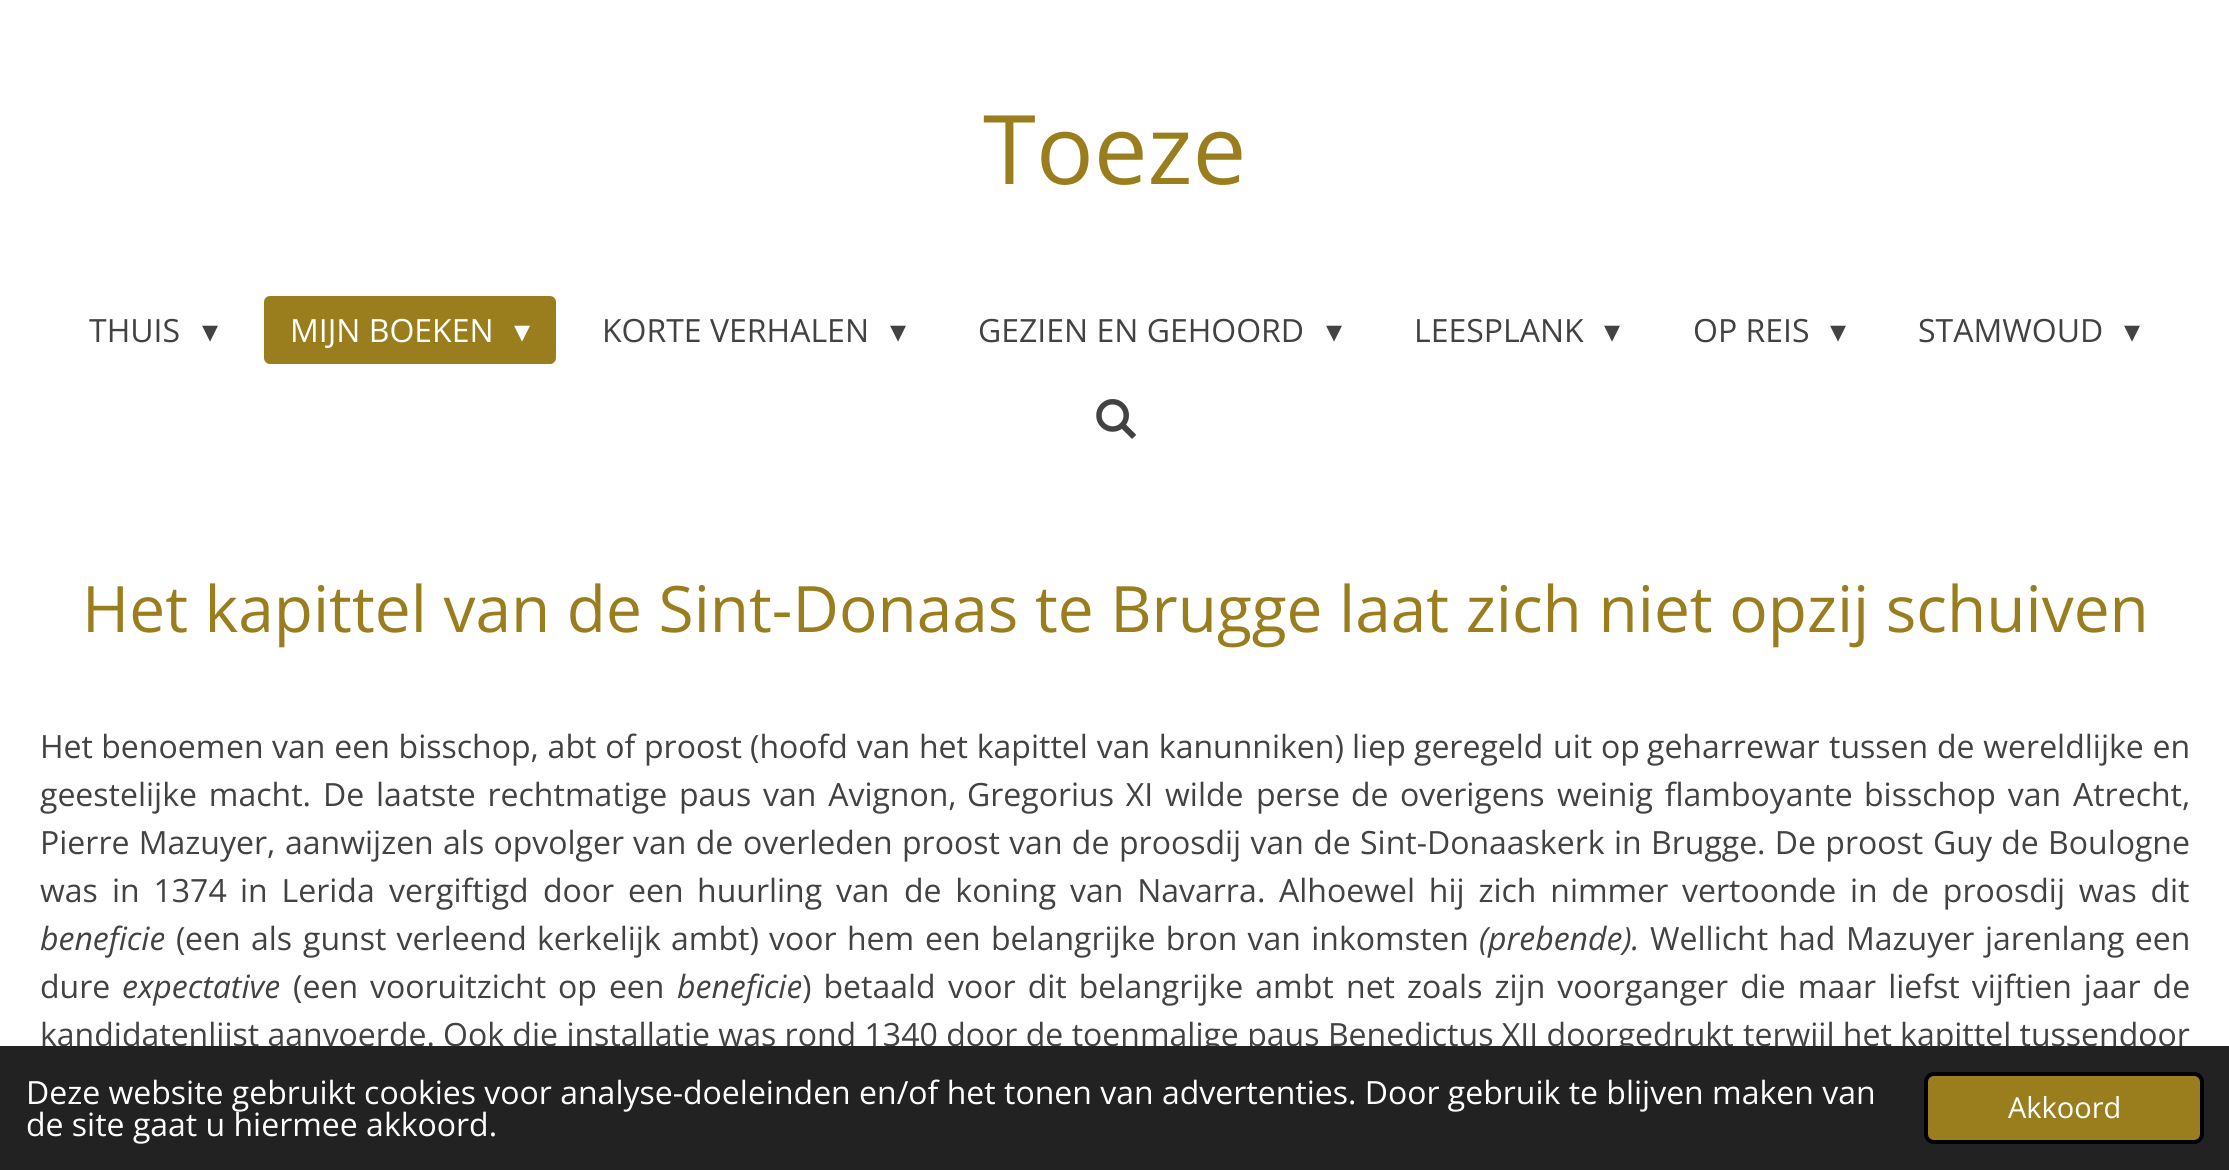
#include <cairo.h>
#include <math.h>
#include <stddef.h>

typedef struct { double x, y; const char *s; } line_t;

static void ink(cairo_t *ctx, unsigned color) {
    cairo_set_source_rgb(ctx, (color >> 16) / 255.0, (color >> 8 & 255) / 255.0, (color & 255) / 255.0);
}

static void write_spaced(cairo_t *ctx, double x, double y, const char *s, double letter, double word) {
    cairo_move_to(ctx, x, y);
    while (*s) {
        char ch[5] = {0};
        int n = 0;
        do ch[n++] = *s++; while ((*s & 0xC0) == 0x80);
        cairo_show_text(ctx, ch);
        cairo_rel_move_to(ctx, letter + word * (*ch == ' '), 0);
    }
}

static void round_path(cairo_t *ctx, double x, double y, double w, double h, double r) {
    cairo_new_sub_path(ctx);
    cairo_arc(ctx, x + w - r, y + h - r, r, 0, M_PI / 2);
    cairo_arc(ctx, x + r, y + h - r, r, M_PI / 2, M_PI);
    cairo_arc(ctx, x + r, y + r, r, M_PI, 1.5 * M_PI);
    cairo_arc(ctx, x + w - r, y + r, r, 1.5 * M_PI, 2 * M_PI);
    cairo_close_path(ctx);
}

static void paste(cairo_t *ctx, const char *path, double x, double y, double w, double h) {
    cairo_surface_t *image = cairo_image_surface_create_from_png(path);
    cairo_save(ctx);
    cairo_set_source_surface(ctx, image, x, y);
    cairo_rectangle(ctx, x, y, w, h);
    cairo_fill(ctx);
    cairo_restore(ctx);
    cairo_surface_destroy(image);
}

int main(void) {
    cairo_surface_t *surface = cairo_image_surface_create(CAIRO_FORMAT_RGB24, 2229, 1170);
    cairo_t *ctx = cairo_create(surface);
    cairo_font_options_t *options = cairo_font_options_create();
    cairo_font_options_set_hint_metrics(options, CAIRO_HINT_METRICS_OFF);
    cairo_font_options_set_hint_style(options, CAIRO_HINT_STYLE_NONE);
    cairo_set_font_options(ctx, options);
    cairo_set_miter_limit(ctx, 4);
    ink(ctx, 0xFFFFFF);
    cairo_paint(ctx);
    cairo_select_font_face(ctx, "Open Sans", CAIRO_FONT_SLANT_NORMAL, CAIRO_FONT_WEIGHT_NORMAL);
    cairo_set_font_size(ctx, 96);
    ink(ctx, 0x9A7E1E);
    cairo_move_to(ctx, 983, 184);
    cairo_show_text(ctx, "Toeze");
    cairo_set_font_size(ctx, 32);
    ink(ctx, 0x424242);
    cairo_move_to(ctx, 89, 342);
    cairo_show_text(ctx, "THUIS");
    cairo_select_font_face(ctx, "DejaVu Sans", CAIRO_FONT_SLANT_NORMAL, CAIRO_FONT_WEIGHT_NORMAL);
    cairo_move_to(ctx, 202, 342);
    cairo_show_text(ctx, "▾");
    ink(ctx, 0x9A7E1E);
    round_path(ctx, 264, 296, 292, 68, 6);
    cairo_fill(ctx);
    cairo_select_font_face(ctx, "Open Sans", CAIRO_FONT_SLANT_NORMAL, CAIRO_FONT_WEIGHT_NORMAL);
    ink(ctx, 0xFFFFFF);
    cairo_move_to(ctx, 290, 342);
    cairo_show_text(ctx, "MIJN BOEKEN");
    cairo_select_font_face(ctx, "DejaVu Sans", CAIRO_FONT_SLANT_NORMAL, CAIRO_FONT_WEIGHT_NORMAL);
    cairo_move_to(ctx, 514, 342);
    cairo_show_text(ctx, "▾");
    cairo_select_font_face(ctx, "Open Sans", CAIRO_FONT_SLANT_NORMAL, CAIRO_FONT_WEIGHT_NORMAL);
    ink(ctx, 0x424242);
    cairo_move_to(ctx, 602, 342);
    cairo_show_text(ctx, "KORTE VERHALEN");
    cairo_select_font_face(ctx, "DejaVu Sans", CAIRO_FONT_SLANT_NORMAL, CAIRO_FONT_WEIGHT_NORMAL);
    cairo_move_to(ctx, 890, 342);
    cairo_show_text(ctx, "▾");
    cairo_select_font_face(ctx, "Open Sans", CAIRO_FONT_SLANT_NORMAL, CAIRO_FONT_WEIGHT_NORMAL);
    cairo_move_to(ctx, 978, 342);
    cairo_show_text(ctx, "GEZIEN EN GEHOORD");
    cairo_select_font_face(ctx, "DejaVu Sans", CAIRO_FONT_SLANT_NORMAL, CAIRO_FONT_WEIGHT_NORMAL);
    cairo_move_to(ctx, 1326, 342);
    cairo_show_text(ctx, "▾");
    cairo_select_font_face(ctx, "Open Sans", CAIRO_FONT_SLANT_NORMAL, CAIRO_FONT_WEIGHT_NORMAL);
    cairo_move_to(ctx, 1414, 342);
    cairo_show_text(ctx, "LEESPLANK");
    cairo_select_font_face(ctx, "DejaVu Sans", CAIRO_FONT_SLANT_NORMAL, CAIRO_FONT_WEIGHT_NORMAL);
    cairo_move_to(ctx, 1604, 342);
    cairo_show_text(ctx, "▾");
    cairo_select_font_face(ctx, "Open Sans", CAIRO_FONT_SLANT_NORMAL, CAIRO_FONT_WEIGHT_NORMAL);
    cairo_move_to(ctx, 1693, 342);
    cairo_show_text(ctx, "OP REIS");
    cairo_select_font_face(ctx, "DejaVu Sans", CAIRO_FONT_SLANT_NORMAL, CAIRO_FONT_WEIGHT_NORMAL);
    cairo_move_to(ctx, 1830, 342);
    cairo_show_text(ctx, "▾");
    cairo_select_font_face(ctx, "Open Sans", CAIRO_FONT_SLANT_NORMAL, CAIRO_FONT_WEIGHT_NORMAL);
    cairo_move_to(ctx, 1918, 342);
    cairo_show_text(ctx, "STAMWOUD");
    cairo_select_font_face(ctx, "DejaVu Sans", CAIRO_FONT_SLANT_NORMAL, CAIRO_FONT_WEIGHT_NORMAL);
    cairo_move_to(ctx, 2124, 342);
    cairo_show_text(ctx, "▾");
    paste(ctx, "media/1.png", 1096, 399, 41, 40);
    cairo_select_font_face(ctx, "Open Sans", CAIRO_FONT_SLANT_NORMAL, CAIRO_FONT_WEIGHT_NORMAL);
    cairo_set_font_size(ctx, 64);
    ink(ctx, 0x9A7E1E);
    cairo_move_to(ctx, 82, 632);
    cairo_show_text(ctx, "Het kapittel van de Sint-Donaas te Brugge laat zich niet opzij schuiven");
    cairo_set_font_size(ctx, 32);
    ink(ctx, 0x424242);
    cairo_move_to(ctx, 40, 758);
    cairo_show_text(ctx, "Het benoem");
    cairo_move_to(ctx, 226, 758);
    cairo_show_text(ctx, "en");
    write_spaced(ctx, 272, 758, "van een bisschop, abt of proost", 0, 0.5);
    write_spaced(ctx, 750, 758, "(hoofd van het kapittel van kanunniken)", 0, 0.5);
    cairo_move_to(ctx, 1352, 758);
    cairo_show_text(ctx, "liep");
    cairo_move_to(ctx, 1414, 758);
    cairo_show_text(ctx, "geregeld");
    write_spaced(ctx, 1553, 758, "uit op", 0, 0.5);
    cairo_move_to(ctx, 1647, 758);
    cairo_show_text(ctx, "geharrewar");
    write_spaced(ctx, 1829, 758, "tussen de wereldlijke en", 0, 0.5);
    {
        static const line_t items[] = {
            {40, 806, "geestelijke macht."},
            {323, 806, "De laatste rechtmatige paus van Avignon,"},
            {967, 806, "Gregorius XI wilde"},
        };
        for (size_t i = 0; i < sizeof items / sizeof *items; i++) {
            write_spaced(ctx, items[i].x, items[i].y, items[i].s, 0, 3.5);
        }
    }
    {
        static const line_t items[] = {
            {1256, 806, "perse"},
            {1351, 806, "de"},
            {1400, 806, "overigens"},
        };
        for (size_t i = 0; i < sizeof items / sizeof *items; i++) {
            cairo_move_to(ctx, items[i].x, items[i].y);
            cairo_show_text(ctx, items[i].s);
        }
    }
    write_spaced(ctx, 1557, 806, "weinig flamboyante", 0, 3.5);
    write_spaced(ctx, 1864, 806, "bisschop van Atrecht,", 0, 3.5);
    write_spaced(ctx, 40, 854, "Pierre Mazuyer", 0, 1);
    cairo_move_to(ctx, 267, 854);
    cairo_show_text(ctx, ",");
    write_spaced(ctx, 285, 854, "aanwijzen als opvolger", 0, 1);
    write_spaced(ctx, 633, 854, "van de", 0, 1);
    cairo_move_to(ctx, 743, 854);
    cairo_show_text(ctx, "overleden");
    write_spaced(ctx, 902, 854, "proost van de", 0, 1);
    write_spaced(ctx, 1119, 854, "proosdij van de", 0, 1);
    cairo_move_to(ctx, 1360, 854);
    cairo_show_text(ctx, "Sint-Donaaskerk");
    write_spaced(ctx, 1614, 854, "in Brugge. De proost", 0, 1);
    write_spaced(ctx, 1933, 854, "Guy de Boulogne", 0, 1);
    cairo_move_to(ctx, 40, 902);
    cairo_show_text(ctx, "was");
    write_spaced(ctx, 112, 902, "in 1374", 0, 5.5);
    write_spaced(ctx, 240, 902, "in Lerida", 0, 5.5);
    cairo_move_to(ctx, 389, 902);
    cairo_show_text(ctx, "vergiftigd");
    {
        static const line_t items[] = {
            {543, 902, "door een"},
            {697, 902, "huurling van"},
            {904, 902, "de koning van Navarra"},
        };
        for (size_t i = 0; i < sizeof items / sizeof *items; i++) {
            write_spaced(ctx, items[i].x, items[i].y, items[i].s, 0, 5.5);
        }
    }
    cairo_move_to(ctx, 1257, 902);
    cairo_show_text(ctx, ".");
    write_spaced(ctx, 1279, 902, "Alhoewel hij zich nimmer vertoonde in de proosdij was dit", 0, 5.5);
    cairo_select_font_face(ctx, "Open Sans", CAIRO_FONT_SLANT_ITALIC, CAIRO_FONT_WEIGHT_NORMAL);
    cairo_move_to(ctx, 40, 950);
    cairo_show_text(ctx, "beneficie");
    cairo_select_font_face(ctx, "Open Sans", CAIRO_FONT_SLANT_NORMAL, CAIRO_FONT_WEIGHT_NORMAL);
    cairo_move_to(ctx, 176, 950);
    cairo_show_text(ctx, "(");
    write_spaced(ctx, 185, 950, "een als", 0, 2);
    write_spaced(ctx, 303, 950, "gunst verleend", 0, 2);
    cairo_move_to(ctx, 537, 950);
    cairo_show_text(ctx, "kerkelijk");
    cairo_move_to(ctx, 671, 950);
    cairo_show_text(ctx, "ambt)");
    write_spaced(ctx, 769, 950, "voor hem", 0, 2);
    cairo_move_to(ctx, 925, 950);
    cairo_show_text(ctx, "een");
    write_spaced(ctx, 991, 950, "belangrijke bron van inkomsten", 0, 2);
    cairo_select_font_face(ctx, "Open Sans", CAIRO_FONT_SLANT_ITALIC, CAIRO_FONT_WEIGHT_NORMAL);
    cairo_move_to(ctx, 1479, 950);
    cairo_show_text(ctx, "(prebende).");
    cairo_select_font_face(ctx, "Open Sans", CAIRO_FONT_SLANT_NORMAL, CAIRO_FONT_WEIGHT_NORMAL);
    write_spaced(ctx, 1650, 950, "Wellicht had", 0, 2);
    cairo_move_to(ctx, 1846, 950);
    cairo_show_text(ctx, "Mazuyer");
    write_spaced(ctx, 1985, 950, "jarenlang een", 0, 2);
    cairo_move_to(ctx, 40, 998);
    cairo_show_text(ctx, "dure");
    cairo_select_font_face(ctx, "Open Sans", CAIRO_FONT_SLANT_ITALIC, CAIRO_FONT_WEIGHT_NORMAL);
    cairo_move_to(ctx, 122, 998);
    cairo_show_text(ctx, "expectative");
    cairo_select_font_face(ctx, "Open Sans", CAIRO_FONT_SLANT_NORMAL, CAIRO_FONT_WEIGHT_NORMAL);
    cairo_move_to(ctx, 293, 998);
    cairo_show_text(ctx, "(een");
    cairo_move_to(ctx, 370, 998);
    cairo_show_text(ctx, "vooruitzicht");
    write_spaced(ctx, 558, 998, "op een", 0, 3.75);
    cairo_select_font_face(ctx, "Open Sans", CAIRO_FONT_SLANT_ITALIC, CAIRO_FONT_WEIGHT_NORMAL);
    cairo_move_to(ctx, 677, 998);
    cairo_show_text(ctx, "beneficie");
    cairo_select_font_face(ctx, "Open Sans", CAIRO_FONT_SLANT_NORMAL, CAIRO_FONT_WEIGHT_NORMAL);
    {
        static const line_t items[] = {
            {802, 998, ") betaald"},
            {948, 998, "voor dit belangrijke ambt"},
            {1346, 998, "net zoals zijn voorganger die maar liefst vijftien jaar de"},
        };
        for (size_t i = 0; i < sizeof items / sizeof *items; i++) {
            write_spaced(ctx, items[i].x, items[i].y, items[i].s, 0, 3.75);
        }
    }
    cairo_move_to(ctx, 40, 1046);
    cairo_show_text(ctx, "kandidatenlijst aanvoerde.");
    write_spaced(ctx, 443, 1046, "Ook die installatie was rond 1340 door de toenmalige paus Benedictus XII doorgedrukt", 0, 0.1);
    cairo_move_to(ctx, 1743, 1046);
    cairo_show_text(ctx, "terwijl het kapittel tussendoor");
    ink(ctx, 0x222222);
    cairo_rectangle(ctx, 0, 1046, 2229, 124);
    cairo_fill(ctx);
    ink(ctx, 0xFFFFFF);
    cairo_move_to(ctx, 26, 1104);
    cairo_show_text(ctx, "Deze website gebruikt cookies voor analyse-doeleinden en/of het tonen van advertenties. Door gebruik te blijven maken van");
    cairo_move_to(ctx, 26, 1136);
    cairo_show_text(ctx, "de site gaat u hiermee akkoord.");
    ink(ctx, 0x9A7E1E);
    round_path(ctx, 1926, 1074, 276, 68, 8);
    cairo_fill_preserve(ctx);
    ink(ctx, 0x000000);
    cairo_set_line_width(ctx, 4);
    cairo_stroke(ctx);
    cairo_set_font_size(ctx, 29);
    ink(ctx, 0xFFFFFF);
    cairo_move_to(ctx, 2008, 1118);
    cairo_show_text(ctx, "Akkoord");
    cairo_surface_write_to_png(surface, "image.png");
    cairo_font_options_destroy(options);
    cairo_destroy(ctx);
    cairo_surface_destroy(surface);
    return 0;
}
